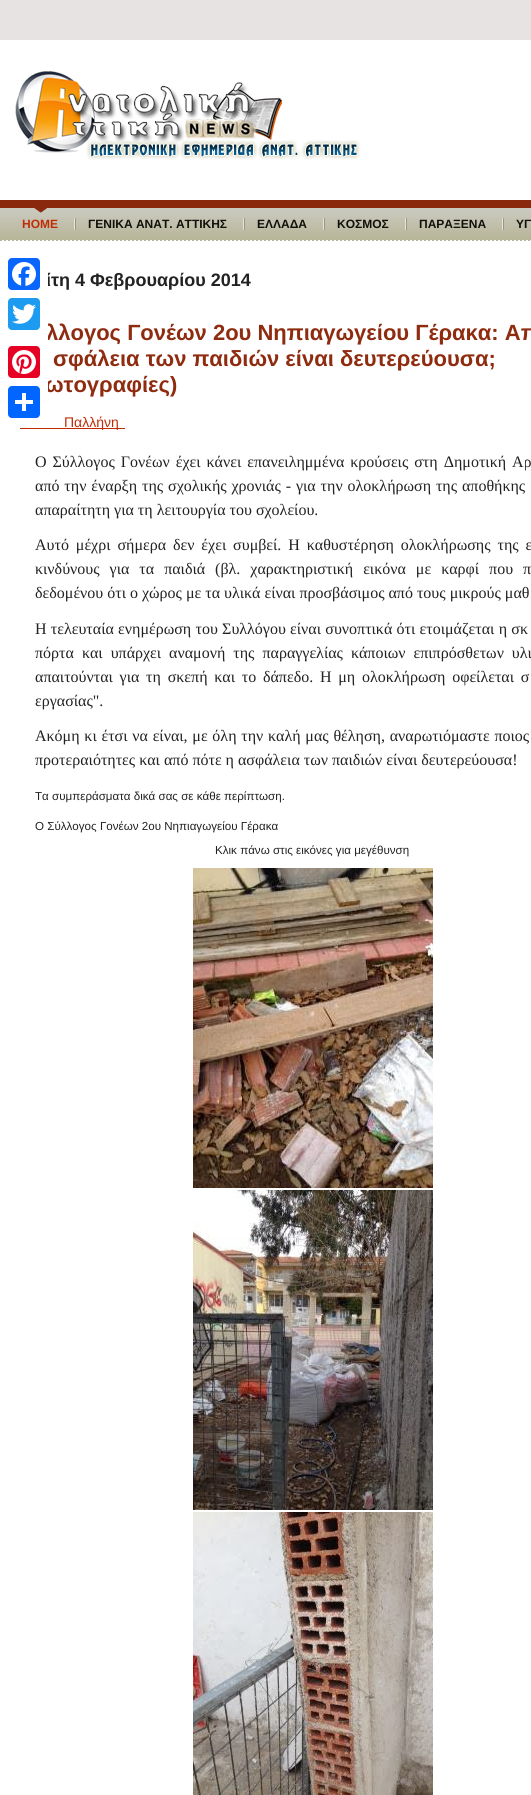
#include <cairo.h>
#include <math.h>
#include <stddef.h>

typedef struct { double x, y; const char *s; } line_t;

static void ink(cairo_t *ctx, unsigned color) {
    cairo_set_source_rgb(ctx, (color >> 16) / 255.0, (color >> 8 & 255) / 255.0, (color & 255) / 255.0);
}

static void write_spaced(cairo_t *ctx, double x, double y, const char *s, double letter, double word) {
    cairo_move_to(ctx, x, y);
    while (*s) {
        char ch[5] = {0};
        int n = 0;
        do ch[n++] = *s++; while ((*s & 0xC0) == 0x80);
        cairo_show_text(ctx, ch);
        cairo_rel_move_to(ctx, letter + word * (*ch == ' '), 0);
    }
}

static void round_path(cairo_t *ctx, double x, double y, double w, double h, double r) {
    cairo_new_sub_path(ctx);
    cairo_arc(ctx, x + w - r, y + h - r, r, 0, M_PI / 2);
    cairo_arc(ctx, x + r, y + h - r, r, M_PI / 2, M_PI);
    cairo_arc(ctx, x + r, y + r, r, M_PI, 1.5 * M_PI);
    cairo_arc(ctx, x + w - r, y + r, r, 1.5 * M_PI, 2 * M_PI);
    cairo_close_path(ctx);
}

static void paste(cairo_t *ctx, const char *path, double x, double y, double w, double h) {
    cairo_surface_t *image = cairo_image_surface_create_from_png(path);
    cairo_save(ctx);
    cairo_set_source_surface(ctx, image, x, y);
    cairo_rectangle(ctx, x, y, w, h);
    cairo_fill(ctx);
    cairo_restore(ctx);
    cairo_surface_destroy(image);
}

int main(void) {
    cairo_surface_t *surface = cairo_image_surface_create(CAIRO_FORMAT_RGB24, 531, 1795);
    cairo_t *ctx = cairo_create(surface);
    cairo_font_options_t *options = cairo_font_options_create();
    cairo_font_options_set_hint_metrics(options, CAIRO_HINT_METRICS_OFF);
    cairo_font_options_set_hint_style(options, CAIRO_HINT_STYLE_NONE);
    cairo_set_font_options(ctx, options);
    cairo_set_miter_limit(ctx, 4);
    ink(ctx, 0xE7E3E2);
    cairo_paint(ctx);
    ink(ctx, 0xFFFFFF);
    cairo_rectangle(ctx, 0, 40, 531, 160);
    cairo_fill(ctx);
    paste(ctx, "media/1.png", 15, 71, 346, 89);
    paste(ctx, "media/2.png", 0, 208, 531, 33);
    ink(ctx, 0x8A280E);
    cairo_rectangle(ctx, 0, 200, 531, 8);
    cairo_fill(ctx);
    paste(ctx, "media/3.png", 74, 218, 2, 12);
    paste(ctx, "media/4.png", 34, 208, 13, 5);
    cairo_select_font_face(ctx, "Liberation Sans", CAIRO_FONT_SLANT_NORMAL, CAIRO_FONT_WEIGHT_BOLD);
    cairo_set_font_size(ctx, 12);
    ink(ctx, 0xC02D04);
    cairo_move_to(ctx, 22, 228);
    cairo_show_text(ctx, "HOME");
    paste(ctx, "media/3.png", 243, 218, 2, 12);
    ink(ctx, 0x11110C);
    cairo_move_to(ctx, 88, 228);
    cairo_show_text(ctx, "ΓΕΝΙΚΑ ΑΝΑΤ. ΑΤΤΙΚΗΣ");
    paste(ctx, "media/3.png", 323, 218, 2, 12);
    cairo_move_to(ctx, 257, 228);
    cairo_show_text(ctx, "ΕΛΛΑΔΑ");
    paste(ctx, "media/3.png", 405, 218, 2, 12);
    cairo_move_to(ctx, 337, 228);
    cairo_show_text(ctx, "ΚΟΣΜΟΣ");
    paste(ctx, "media/3.png", 502, 218, 2, 12);
    cairo_move_to(ctx, 419, 228);
    cairo_show_text(ctx, "ΠΑΡΑΞΕΝΑ");
    cairo_move_to(ctx, 516, 228);
    cairo_show_text(ctx, "ΥΓ");
    ink(ctx, 0xFFFFFF);
    cairo_rectangle(ctx, 0, 241, 531, 1554);
    cairo_fill(ctx);
    cairo_set_font_size(ctx, 18);
    ink(ctx, 0x222222);
    cairo_move_to(ctx, 46, 286);
    cairo_show_text(ctx, "ίτη 4 Φεβρουαρίου 2014");
    cairo_set_font_size(ctx, 22);
    ink(ctx, 0x8F2C10);
    cairo_move_to(ctx, 46, 340);
    cairo_show_text(ctx, "λλογος Γονέων 2ου Νηπιαγωγείου Γέρακα: Απ");
    cairo_move_to(ctx, 45, 392);
    cairo_show_text(ctx, "ωτογραφίες)");
    ink(ctx, 0xFFFFFF);
    round_path(ctx, 0, 250, 48, 176, 6);
    cairo_fill(ctx);
    ink(ctx, 0x0866FF);
    round_path(ctx, 8, 258, 32, 32, 4);
    cairo_fill(ctx);
    paste(ctx, "media/5.png", 12, 262, 24, 24);
    ink(ctx, 0x1D9BF0);
    round_path(ctx, 8, 298, 32, 32, 4);
    cairo_fill(ctx);
    paste(ctx, "media/6.png", 12, 304, 24, 20);
    ink(ctx, 0xE60023);
    round_path(ctx, 8, 346, 32, 32, 4);
    cairo_fill(ctx);
    paste(ctx, "media/7.png", 12, 350, 24, 24);
    ink(ctx, 0x0166FF);
    round_path(ctx, 8, 386, 32, 32, 4);
    cairo_fill(ctx);
    ink(ctx, 0xFFFFFF);
    cairo_rectangle(ctx, 22, 393, 4, 18);
    cairo_fill(ctx);
    cairo_rectangle(ctx, 15, 400, 18, 4);
    cairo_fill(ctx);
    ink(ctx, 0x8F2C10);
    cairo_move_to(ctx, 53, 366);
    cairo_show_text(ctx, "σφάλεια των παιδιών είναι δευτερεύουσα;");
    ink(ctx, 0xC02A00);
    cairo_rectangle(ctx, 20, 428, 105, 1);
    cairo_fill(ctx);
    cairo_select_font_face(ctx, "Liberation Sans", CAIRO_FONT_SLANT_NORMAL, CAIRO_FONT_WEIGHT_NORMAL);
    cairo_set_font_size(ctx, 14);
    ink(ctx, 0xC02D04);
    cairo_move_to(ctx, 64, 427);
    cairo_show_text(ctx, "Παλλήνη");
    cairo_select_font_face(ctx, "Liberation Serif", CAIRO_FONT_SLANT_NORMAL, CAIRO_FONT_WEIGHT_NORMAL);
    cairo_set_font_size(ctx, 16);
    ink(ctx, 0x222222);
    write_spaced(ctx, 35, 467, "Ο Σύλλογος Γονέων έχει κάνει επανειλημμένα κρούσεις στη Δημοτική Αρ", 0, 2);
    write_spaced(ctx, 35, 491, "από την έναρξη της σχολικής χρονιάς - για την ολοκλήρωση της αποθήκης", 0, 0.9);
    cairo_move_to(ctx, 35, 515);
    cairo_show_text(ctx, "απαραίτητη για τη λειτουργία του σχολείου.");
    write_spaced(ctx, 35, 550, "Αυτό μέχρι σήμερα δεν έχει συμβεί. Η καθυστέρηση ολοκλήρωσης της ε", 0, 2.9);
    write_spaced(ctx, 35, 574, "κινδύνους για τα παιδιά (βλ. χαρακτηριστική εικόνα με καρφί που π", 0, 6);
    cairo_move_to(ctx, 35, 598);
    cairo_show_text(ctx, "δεδομένου ότι ο χώρος με τα υλικά είναι προσβάσιμος από τους μικρούς μαθ");
    write_spaced(ctx, 35, 634, "Η τελευταία ενημέρωση του Συλλόγου είναι συνοπτικά ότι ετοιμάζεται η σκ", 0, 0.25);
    write_spaced(ctx, 35, 658, "πόρτα και υπάρχει αναμονή της παραγγελίας κάποιων επιπρόσθετων υλι", 0, 4);
    write_spaced(ctx, 35, 682, "απαιτούνται για τη σκεπή και το δάπεδο. Η μη ολοκλήρωση οφείλεται σ", 0, 2.75);
    cairo_move_to(ctx, 35, 706);
    cairo_show_text(ctx, "εργασίας\".");
    write_spaced(ctx, 35, 741, "Ακόμη κι έτσι να είναι, με όλη την καλή μας θέληση, αναρωτιόμαστε ποιος", 0, 0.75);
    cairo_move_to(ctx, 35, 765);
    cairo_show_text(ctx, "προτεραιότητες και από πότε η ασφάλεια των παιδιών είναι δευτερεύουσα!");
    cairo_select_font_face(ctx, "Liberation Sans", CAIRO_FONT_SLANT_NORMAL, CAIRO_FONT_WEIGHT_NORMAL);
    cairo_set_font_size(ctx, 11.6);
    {
        static const line_t items[] = {
            {35, 800, "Τα συμπεράσματα δικά σας σε κάθε περίπτωση."},
            {35, 830, "Ο Σύλλογος Γονέων 2ου Νηπιαγωγείου Γέρακα"},
            {215, 854, "Κλικ πάνω στις εικόνες για μεγέθυνση"},
        };
        for (size_t i = 0; i < sizeof items / sizeof *items; i++) {
            cairo_move_to(ctx, items[i].x, items[i].y);
            cairo_show_text(ctx, items[i].s);
        }
    }
    paste(ctx, "media/8.png", 193, 868, 240, 320);
    paste(ctx, "media/9.png", 193, 1190, 240, 320);
    paste(ctx, "media/10.png", 193, 1512, 240, 283);
    cairo_surface_write_to_png(surface, "image.png");
    cairo_font_options_destroy(options);
    cairo_destroy(ctx);
    cairo_surface_destroy(surface);
    return 0;
}
